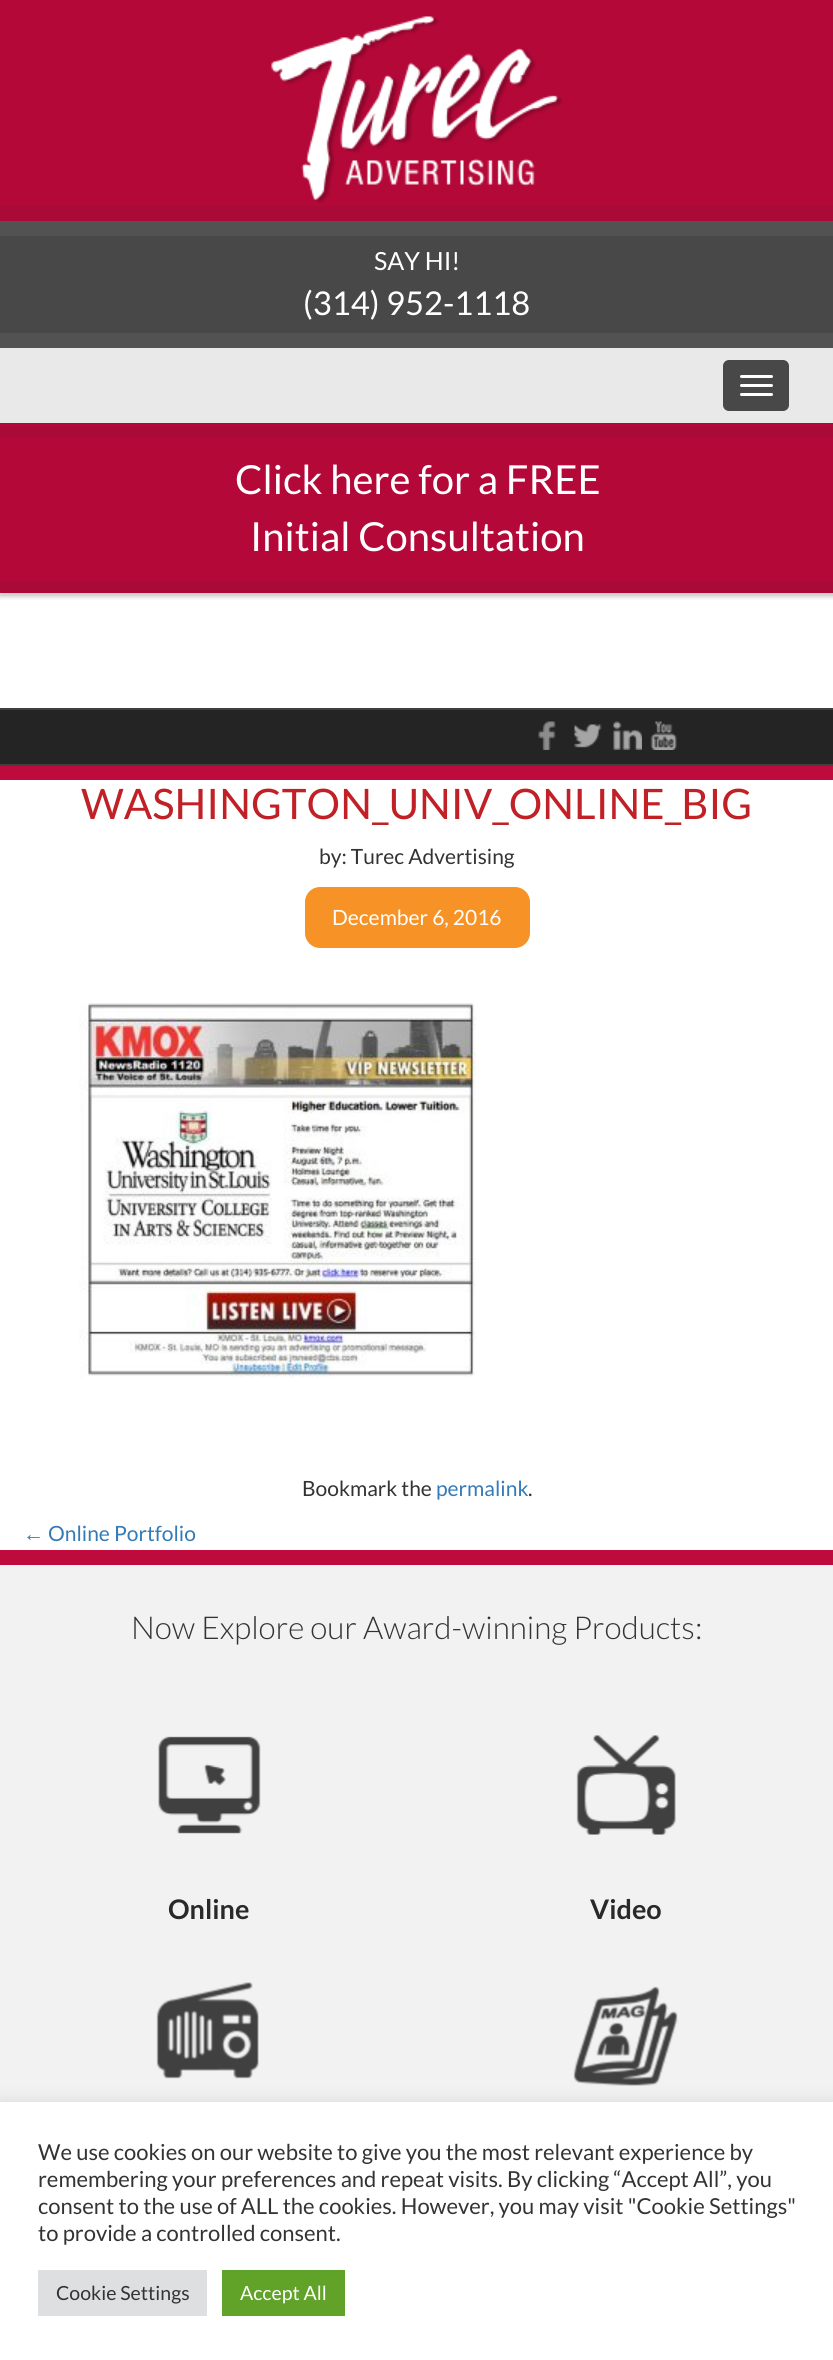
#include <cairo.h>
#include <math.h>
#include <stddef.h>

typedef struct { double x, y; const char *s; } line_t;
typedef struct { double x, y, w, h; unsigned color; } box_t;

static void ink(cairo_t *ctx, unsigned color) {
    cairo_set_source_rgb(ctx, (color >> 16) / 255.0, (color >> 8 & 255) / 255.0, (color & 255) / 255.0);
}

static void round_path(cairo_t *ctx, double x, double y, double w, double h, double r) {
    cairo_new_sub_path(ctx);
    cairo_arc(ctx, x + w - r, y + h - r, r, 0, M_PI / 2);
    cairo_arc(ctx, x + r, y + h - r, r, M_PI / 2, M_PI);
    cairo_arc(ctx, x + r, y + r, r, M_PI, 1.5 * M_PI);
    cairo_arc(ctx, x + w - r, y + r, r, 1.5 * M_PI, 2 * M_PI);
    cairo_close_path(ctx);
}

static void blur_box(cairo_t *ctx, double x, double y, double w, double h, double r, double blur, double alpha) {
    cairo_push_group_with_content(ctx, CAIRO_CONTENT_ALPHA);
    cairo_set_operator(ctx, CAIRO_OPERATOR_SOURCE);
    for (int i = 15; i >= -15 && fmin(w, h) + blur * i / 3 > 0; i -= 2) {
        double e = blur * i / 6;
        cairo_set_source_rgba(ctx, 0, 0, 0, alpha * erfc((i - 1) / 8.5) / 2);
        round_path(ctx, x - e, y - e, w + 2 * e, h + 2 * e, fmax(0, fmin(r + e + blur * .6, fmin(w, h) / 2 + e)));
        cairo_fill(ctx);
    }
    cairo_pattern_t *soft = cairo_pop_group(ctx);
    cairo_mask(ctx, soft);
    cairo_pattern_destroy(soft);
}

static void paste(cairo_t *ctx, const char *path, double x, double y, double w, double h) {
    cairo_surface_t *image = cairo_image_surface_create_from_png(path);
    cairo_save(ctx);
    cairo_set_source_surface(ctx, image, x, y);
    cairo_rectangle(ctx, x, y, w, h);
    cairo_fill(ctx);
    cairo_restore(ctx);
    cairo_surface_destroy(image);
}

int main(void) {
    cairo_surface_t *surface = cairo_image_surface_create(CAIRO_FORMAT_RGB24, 833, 2360);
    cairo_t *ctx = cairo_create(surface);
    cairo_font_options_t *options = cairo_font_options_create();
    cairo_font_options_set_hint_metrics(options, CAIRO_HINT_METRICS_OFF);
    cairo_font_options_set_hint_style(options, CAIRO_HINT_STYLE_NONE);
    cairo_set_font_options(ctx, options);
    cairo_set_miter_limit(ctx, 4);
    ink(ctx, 0xFFFFFF);
    cairo_paint(ctx);
    {
        static const box_t items[] = {
            {0, 348, 833, 75, 0xE9E9E9},
            {0, 423, 833, 2, 0xB30838},
            {0, 0, 833, 206, 0xB30838},
            {0, 206, 833, 15, 0xAA0A38},
        };
        for (size_t i = 0; i < sizeof items / sizeof *items; i++) {
            ink(ctx, items[i].color);
            cairo_rectangle(ctx, items[i].x, items[i].y, items[i].w, items[i].h);
            cairo_fill(ctx);
        }
    }
    paste(ctx, "media/1.png", 271, 16, 292, 187);
    {
        static const box_t items[] = {
            {0, 236, 833, 97, 0x484848},
            {0, 221, 833, 15, 0x525252},
            {0, 333, 833, 15, 0x525252},
        };
        for (size_t i = 0; i < sizeof items / sizeof *items; i++) {
            ink(ctx, items[i].color);
            cairo_rectangle(ctx, items[i].x, items[i].y, items[i].w, items[i].h);
            cairo_fill(ctx);
        }
    }
    cairo_select_font_face(ctx, "Lato", CAIRO_FONT_SLANT_NORMAL, CAIRO_FONT_WEIGHT_NORMAL);
    cairo_set_font_size(ctx, 25);
    ink(ctx, 0xFFFFFF);
    cairo_move_to(ctx, 374, 270);
    cairo_show_text(ctx, "SAY HI!");
    cairo_set_font_size(ctx, 32.75);
    cairo_move_to(ctx, 303, 315);
    cairo_show_text(ctx, "(314) 952-1118");
    ink(ctx, 0x484848);
    round_path(ctx, 723, 360, 66, 51, 6);
    cairo_fill(ctx);
    ink(ctx, 0xFFFFFF);
    round_path(ctx, 740, 375, 33, 3, 1.5);
    cairo_fill(ctx);
    round_path(ctx, 740, 384, 33, 3, 1.5);
    cairo_fill(ctx);
    round_path(ctx, 740, 393, 33, 3, 1.5);
    cairo_fill(ctx);
    ink(ctx, 0x000000);
    blur_box(ctx, -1, 429, 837, 168, 0, 2, 0.2);
    {
        static const box_t items[] = {
            {0, 437, 833, 144, 0xB30838},
            {0, 425, 833, 12, 0xAA0A38},
            {0, 581, 833, 12, 0xAA0A38},
        };
        for (size_t i = 0; i < sizeof items / sizeof *items; i++) {
            ink(ctx, items[i].color);
            cairo_rectangle(ctx, items[i].x, items[i].y, items[i].w, items[i].h);
            cairo_fill(ctx);
        }
    }
    cairo_set_font_size(ctx, 40);
    ink(ctx, 0xFFFFFF);
    cairo_move_to(ctx, 235, 494);
    cairo_show_text(ctx, "Click here for a FREE");
    cairo_move_to(ctx, 250, 551);
    cairo_show_text(ctx, "Initial Consultation");
    {
        static const box_t items[] = {
            {0, 710, 833, 54, 0x242424},
            {0, 708, 833, 2, 0x404040},
            {0, 764, 833, 2, 0x404040},
        };
        for (size_t i = 0; i < sizeof items / sizeof *items; i++) {
            ink(ctx, items[i].color);
            cairo_rectangle(ctx, items[i].x, items[i].y, items[i].w, items[i].h);
            cairo_fill(ctx);
        }
    }
    paste(ctx, "media/2.png", 538, 721, 18, 29);
    paste(ctx, "media/3.png", 574, 724, 28, 24);
    paste(ctx, "media/4.png", 613, 721, 29, 29);
    paste(ctx, "media/5.png", 650, 721, 27, 29);
    ink(ctx, 0xBE0A3D);
    cairo_rectangle(ctx, 0, 766, 833, 14);
    cairo_fill(ctx);
    cairo_set_font_size(ctx, 42);
    ink(ctx, 0xC12026);
    cairo_move_to(ctx, 81, 819);
    cairo_show_text(ctx, "WASHINGTON_UNIV_ONLINE_BIG");
    cairo_set_font_size(ctx, 21);
    ink(ctx, 0x333333);
    cairo_move_to(ctx, 319, 864);
    cairo_show_text(ctx, "by: Turec Advertising");
    ink(ctx, 0xF79326);
    round_path(ctx, 305, 887, 225, 61, 15);
    cairo_fill(ctx);
    ink(ctx, 0xFFFFFF);
    cairo_move_to(ctx, 332, 925);
    cairo_show_text(ctx, "December 6, 2016");
    paste(ctx, "media/6.png", 79, 1003, 397, 375);
    ink(ctx, 0x333333);
    cairo_move_to(ctx, 302, 1496);
    cairo_show_text(ctx, "Bookmark the");
    ink(ctx, 0x337AB7);
    cairo_move_to(ctx, 436, 1496);
    cairo_show_text(ctx, "permalink");
    ink(ctx, 0x333333);
    cairo_move_to(ctx, 528, 1496);
    cairo_show_text(ctx, ".");
    cairo_select_font_face(ctx, "Liberation Sans", CAIRO_FONT_SLANT_NORMAL, CAIRO_FONT_WEIGHT_NORMAL);
    ink(ctx, 0x337AB7);
    cairo_move_to(ctx, 23, 1541);
    cairo_show_text(ctx, "←");
    cairo_select_font_face(ctx, "Lato", CAIRO_FONT_SLANT_NORMAL, CAIRO_FONT_WEIGHT_NORMAL);
    cairo_move_to(ctx, 48, 1541);
    cairo_show_text(ctx, "Online Portfolio");
    ink(ctx, 0xBE0A3D);
    cairo_rectangle(ctx, 0, 1550, 833, 15);
    cairo_fill(ctx);
    ink(ctx, 0xF2F2F2);
    cairo_rectangle(ctx, 0, 1565, 833, 537);
    cairo_fill(ctx);
    cairo_select_font_face(ctx, "Lato Light", CAIRO_FONT_SLANT_NORMAL, CAIRO_FONT_WEIGHT_NORMAL);
    cairo_set_font_size(ctx, 31.5);
    ink(ctx, 0x333333);
    cairo_move_to(ctx, 131, 1639);
    cairo_show_text(ctx, "Now Explore our Award-winning Products:");
    paste(ctx, "media/7.png", 158, 1736, 103, 98);
    cairo_select_font_face(ctx, "Lato", CAIRO_FONT_SLANT_NORMAL, CAIRO_FONT_WEIGHT_BOLD);
    cairo_set_font_size(ctx, 27);
    ink(ctx, 0x292929);
    cairo_move_to(ctx, 168, 1919);
    cairo_show_text(ctx, "Online");
    paste(ctx, "media/8.png", 576, 1735, 100, 100);
    cairo_move_to(ctx, 590, 1919);
    cairo_show_text(ctx, "Video");
    paste(ctx, "media/9.png", 156, 1982, 103, 97);
    paste(ctx, "media/10.png", 573, 1986, 105, 100);
    ink(ctx, 0xACABAB);
    blur_box(ctx, 0, 2100, 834, 260, 0, 7.5, 0.3);
    ink(ctx, 0xFFFFFF);
    cairo_rectangle(ctx, 0, 2102, 833, 258);
    cairo_fill(ctx);
    cairo_select_font_face(ctx, "Lato", CAIRO_FONT_SLANT_NORMAL, CAIRO_FONT_WEIGHT_NORMAL);
    cairo_set_font_size(ctx, 22);
    ink(ctx, 0x333333);
    {
        static const line_t items[] = {
            {38, 2160, "We use cookies on our website to give you the most relevant experience by"},
            {38, 2187, "remembering your preferences and repeat visits. By clicking “Accept All”, you"},
            {38, 2214, "consent to the use of ALL the cookies. However, you may visit \"Cookie Settings\""},
            {38, 2241, "to provide a controlled consent."},
        };
        for (size_t i = 0; i < sizeof items / sizeof *items; i++) {
            cairo_move_to(ctx, items[i].x, items[i].y);
            cairo_show_text(ctx, items[i].s);
        }
    }
    ink(ctx, 0xDEDFE0);
    cairo_rectangle(ctx, 38, 2270, 169, 46);
    cairo_fill(ctx);
    cairo_set_font_size(ctx, 19.5);
    ink(ctx, 0x333333);
    cairo_move_to(ctx, 56, 2300);
    cairo_show_text(ctx, "Cookie Settings");
    ink(ctx, 0x61A229);
    cairo_rectangle(ctx, 222, 2270, 123, 46);
    cairo_fill(ctx);
    ink(ctx, 0xFFFFFF);
    cairo_move_to(ctx, 240, 2300);
    cairo_show_text(ctx, "Accept All");
    cairo_surface_write_to_png(surface, "image.png");
    cairo_font_options_destroy(options);
    cairo_destroy(ctx);
    cairo_surface_destroy(surface);
    return 0;
}
